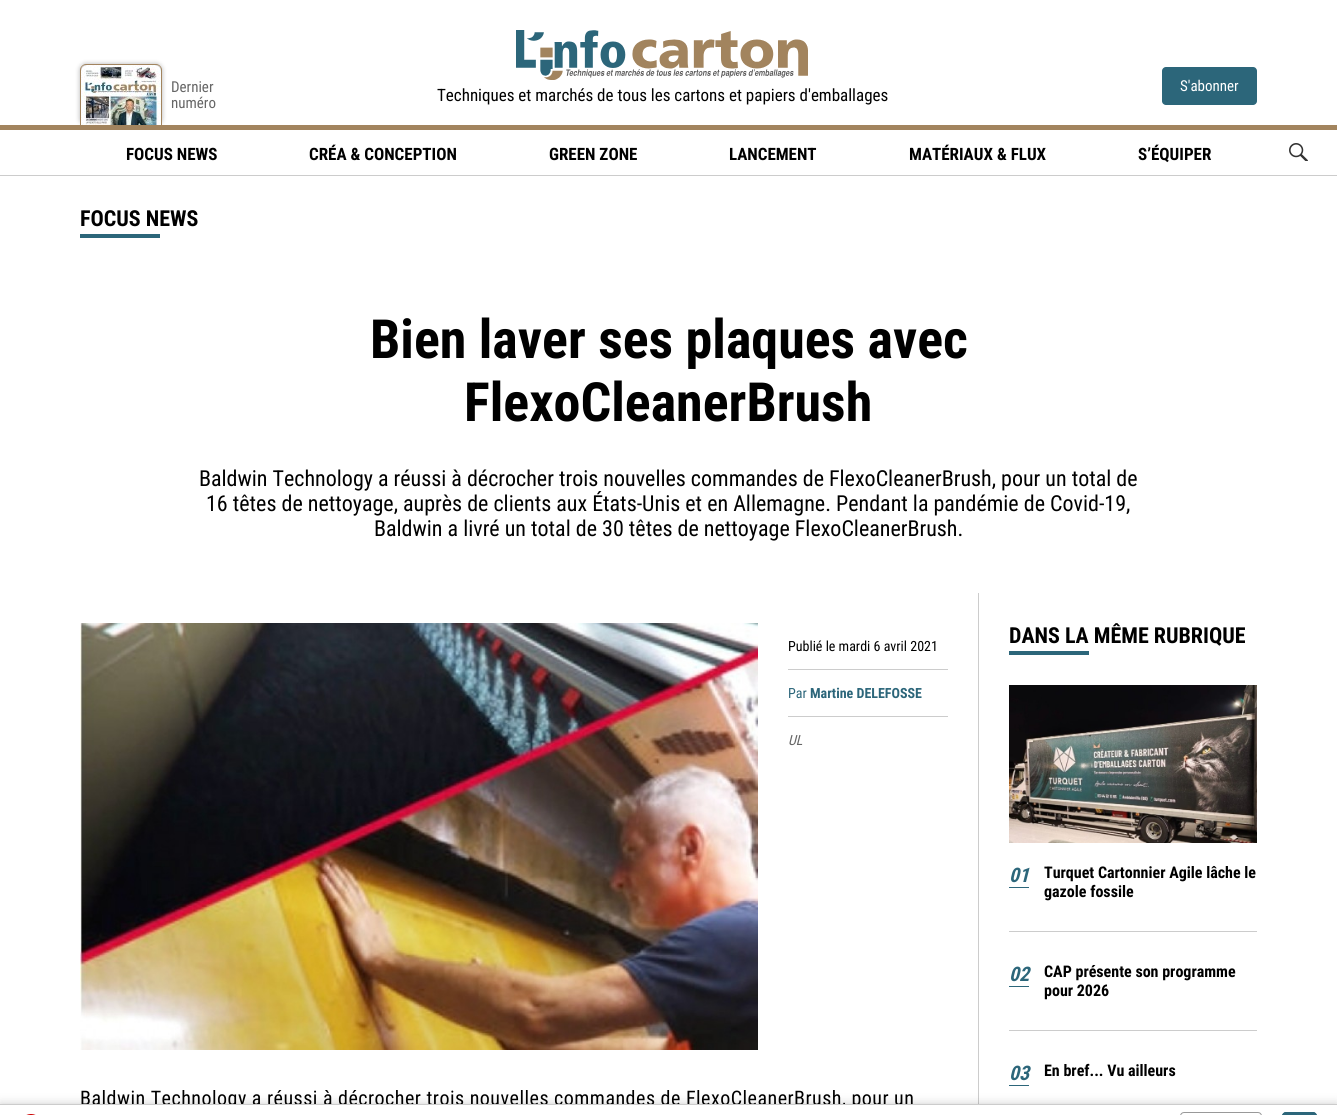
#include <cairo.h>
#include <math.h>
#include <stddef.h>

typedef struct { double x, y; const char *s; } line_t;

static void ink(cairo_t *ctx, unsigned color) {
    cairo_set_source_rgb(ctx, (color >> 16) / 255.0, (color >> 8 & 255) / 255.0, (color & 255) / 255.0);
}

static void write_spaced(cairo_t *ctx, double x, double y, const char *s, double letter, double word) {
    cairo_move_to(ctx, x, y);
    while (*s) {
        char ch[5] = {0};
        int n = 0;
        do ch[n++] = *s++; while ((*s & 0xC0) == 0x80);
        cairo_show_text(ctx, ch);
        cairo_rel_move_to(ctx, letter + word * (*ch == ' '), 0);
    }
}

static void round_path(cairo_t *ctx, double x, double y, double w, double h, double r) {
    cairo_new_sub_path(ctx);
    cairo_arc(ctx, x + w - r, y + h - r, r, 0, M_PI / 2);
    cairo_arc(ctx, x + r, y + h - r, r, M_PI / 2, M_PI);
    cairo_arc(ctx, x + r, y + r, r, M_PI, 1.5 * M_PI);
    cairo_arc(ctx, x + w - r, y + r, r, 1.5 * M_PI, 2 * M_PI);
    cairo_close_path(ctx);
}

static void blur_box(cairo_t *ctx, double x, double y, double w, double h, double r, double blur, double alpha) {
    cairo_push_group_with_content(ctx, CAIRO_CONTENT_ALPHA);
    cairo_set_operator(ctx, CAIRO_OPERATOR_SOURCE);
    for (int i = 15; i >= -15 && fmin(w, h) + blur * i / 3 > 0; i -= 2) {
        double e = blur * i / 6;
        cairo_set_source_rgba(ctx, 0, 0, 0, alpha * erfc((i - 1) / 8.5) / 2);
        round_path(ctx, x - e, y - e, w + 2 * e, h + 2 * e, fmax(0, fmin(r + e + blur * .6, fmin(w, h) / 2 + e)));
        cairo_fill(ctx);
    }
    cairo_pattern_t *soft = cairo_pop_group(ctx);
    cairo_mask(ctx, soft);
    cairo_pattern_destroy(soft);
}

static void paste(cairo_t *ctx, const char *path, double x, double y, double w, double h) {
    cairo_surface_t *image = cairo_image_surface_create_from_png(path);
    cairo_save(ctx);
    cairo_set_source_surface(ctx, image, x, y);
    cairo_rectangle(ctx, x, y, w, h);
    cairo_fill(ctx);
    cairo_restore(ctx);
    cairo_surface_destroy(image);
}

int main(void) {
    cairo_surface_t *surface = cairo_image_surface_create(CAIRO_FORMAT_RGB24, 1337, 1115);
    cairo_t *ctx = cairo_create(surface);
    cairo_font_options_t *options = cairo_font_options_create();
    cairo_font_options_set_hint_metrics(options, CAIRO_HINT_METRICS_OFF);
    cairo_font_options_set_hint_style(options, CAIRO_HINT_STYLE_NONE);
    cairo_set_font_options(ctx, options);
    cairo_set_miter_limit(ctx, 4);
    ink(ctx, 0xFFFFFF);
    cairo_paint(ctx);
    ink(ctx, 0x000000);
    blur_box(ctx, 80, 64, 82, 61, 6, 2.5, 0.3);
    ink(ctx, 0xA2845E);
    cairo_set_fill_rule(ctx, CAIRO_FILL_RULE_EVEN_ODD);
    cairo_new_path(ctx);
    cairo_move_to(ctx, 86, 64);
    cairo_line_to(ctx, 156, 64);
    cairo_curve_to(ctx, 159, 64, 162, 67, 162, 70);
    cairo_line_to(ctx, 162, 125);
    cairo_line_to(ctx, 80, 125);
    cairo_line_to(ctx, 80, 70);
    cairo_curve_to(ctx, 80, 67, 83, 64, 86, 64);
    cairo_close_path(ctx);
    cairo_move_to(ctx, 86, 65);
    cairo_line_to(ctx, 156, 65);
    cairo_curve_to(ctx, 159, 65, 161, 67, 161, 70);
    cairo_line_to(ctx, 161, 125);
    cairo_line_to(ctx, 81, 125);
    cairo_line_to(ctx, 81, 70);
    cairo_curve_to(ctx, 81, 67, 83, 65, 86, 65);
    cairo_close_path(ctx);
    cairo_fill(ctx);
    paste(ctx, "media/1.png", 81, 65, 80, 60);
    cairo_select_font_face(ctx, "Roboto Condensed", CAIRO_FONT_SLANT_NORMAL, CAIRO_FONT_WEIGHT_NORMAL);
    cairo_set_font_size(ctx, 15);
    ink(ctx, 0x666666);
    cairo_move_to(ctx, 171, 92);
    cairo_show_text(ctx, "Dernier");
    cairo_move_to(ctx, 171, 108);
    cairo_show_text(ctx, "numéro");
    paste(ctx, "media/2.png", 516, 30, 292, 50);
    cairo_set_font_size(ctx, 17);
    ink(ctx, 0x000000);
    cairo_move_to(ctx, 437, 101);
    cairo_show_text(ctx, "Techniques et marchés de tous les cartons et papiers d'emballages");
    ink(ctx, 0x2C667A);
    round_path(ctx, 1162, 67, 95, 38, 4);
    cairo_fill(ctx);
    cairo_set_font_size(ctx, 15);
    ink(ctx, 0xFFFFFF);
    cairo_move_to(ctx, 1180, 91);
    cairo_show_text(ctx, "S'abonner");
    ink(ctx, 0xA2845E);
    cairo_rectangle(ctx, 0, 125, 1337, 5);
    cairo_fill(ctx);
    ink(ctx, 0xCCCCCC);
    cairo_rectangle(ctx, 0, 175, 1337, 1);
    cairo_fill(ctx);
    cairo_select_font_face(ctx, "Roboto Condensed", CAIRO_FONT_SLANT_NORMAL, CAIRO_FONT_WEIGHT_BOLD);
    cairo_set_font_size(ctx, 17);
    ink(ctx, 0x000000);
    {
        static const line_t items[] = {
            {126, 160, "FOCUS NEWS"},
            {309, 160, "CRÉA & CONCEPTION"},
            {549, 160, "GREEN ZONE"},
            {729, 160, "LANCEMENT"},
            {909, 160, "MATÉRIAUX & FLUX"},
            {1138, 160, "S’ÉQUIPER"},
        };
        for (size_t i = 0; i < sizeof items / sizeof *items; i++) {
            cairo_move_to(ctx, items[i].x, items[i].y);
            cairo_show_text(ctx, items[i].s);
        }
    }
    paste(ctx, "media/3.png", 1289, 143, 19, 18);
    cairo_set_font_size(ctx, 22);
    cairo_move_to(ctx, 80, 226);
    cairo_show_text(ctx, "FOCUS NEWS");
    ink(ctx, 0x2C667A);
    cairo_rectangle(ctx, 80, 234, 80, 4);
    cairo_fill(ctx);
    cairo_set_font_size(ctx, 54);
    ink(ctx, 0x000000);
    cairo_move_to(ctx, 370, 358);
    cairo_show_text(ctx, "Bien laver ses plaques avec");
    cairo_move_to(ctx, 464, 421);
    cairo_show_text(ctx, "FlexoCleanerBrush");
    cairo_select_font_face(ctx, "Roboto Condensed", CAIRO_FONT_SLANT_NORMAL, CAIRO_FONT_WEIGHT_NORMAL);
    cairo_set_font_size(ctx, 22);
    {
        static const line_t items[] = {
            {199, 486, "Baldwin Technology a réussi à décrocher trois nouvelles commandes de FlexoCleanerBrush, pour un total de"},
            {206, 511, "16 têtes de nettoyage, auprès de clients aux États-Unis et en Allemagne. Pendant la pandémie de Covid-19,"},
            {374, 536, "Baldwin a livré un total de 30 têtes de nettoyage FlexoCleanerBrush."},
        };
        for (size_t i = 0; i < sizeof items / sizeof *items; i++) {
            cairo_move_to(ctx, items[i].x, items[i].y);
            cairo_show_text(ctx, items[i].s);
        }
    }
    paste(ctx, "media/4.png", 80, 623, 678, 427);
    cairo_set_font_size(ctx, 14);
    cairo_move_to(ctx, 788, 651);
    cairo_show_text(ctx, "Publié le mardi 6 avril 2021");
    ink(ctx, 0xCCCCCC);
    cairo_rectangle(ctx, 788, 669, 160, 1);
    cairo_fill(ctx);
    ink(ctx, 0x2C667A);
    cairo_move_to(ctx, 788, 698);
    cairo_show_text(ctx, "Par");
    cairo_select_font_face(ctx, "Roboto Condensed", CAIRO_FONT_SLANT_NORMAL, CAIRO_FONT_WEIGHT_BOLD);
    cairo_move_to(ctx, 810, 698);
    cairo_show_text(ctx, "Martine DELEFOSSE");
    ink(ctx, 0xCCCCCC);
    cairo_rectangle(ctx, 788, 716, 160, 1);
    cairo_fill(ctx);
    cairo_select_font_face(ctx, "Roboto Condensed", CAIRO_FONT_SLANT_ITALIC, CAIRO_FONT_WEIGHT_NORMAL);
    ink(ctx, 0x666666);
    cairo_move_to(ctx, 788, 745);
    cairo_show_text(ctx, "UL");
    cairo_select_font_face(ctx, "Roboto Condensed", CAIRO_FONT_SLANT_NORMAL, CAIRO_FONT_WEIGHT_NORMAL);
    cairo_set_font_size(ctx, 20);
    ink(ctx, 0x000000);
    write_spaced(ctx, 80, 1105, "Baldwin Technology a réussi à décrocher trois nouvelles commandes de FlexoCleanerBrush, pour un", 0.48, 0);
    ink(ctx, 0xCCCCCC);
    cairo_rectangle(ctx, 978, 593, 1, 511);
    cairo_fill(ctx);
    cairo_select_font_face(ctx, "Roboto Condensed", CAIRO_FONT_SLANT_NORMAL, CAIRO_FONT_WEIGHT_BOLD);
    cairo_set_font_size(ctx, 22);
    ink(ctx, 0x000000);
    cairo_move_to(ctx, 1009, 643);
    cairo_show_text(ctx, "DANS LA MÊME RUBRIQUE");
    ink(ctx, 0x2C667A);
    cairo_rectangle(ctx, 1009, 651, 80, 4);
    cairo_fill(ctx);
    ink(ctx, 0xCCCCCC);
    cairo_rectangle(ctx, 1009, 931, 248, 1);
    cairo_fill(ctx);
    paste(ctx, "media/5.png", 1009, 685, 248, 158);
    ink(ctx, 0x2C667A);
    cairo_rectangle(ctx, 1009, 887, 20, 1);
    cairo_fill(ctx);
    cairo_select_font_face(ctx, "Roboto Condensed", CAIRO_FONT_SLANT_ITALIC, CAIRO_FONT_WEIGHT_BOLD);
    cairo_set_font_size(ctx, 20);
    cairo_move_to(ctx, 1009, 882);
    cairo_show_text(ctx, "01");
    cairo_select_font_face(ctx, "Roboto Condensed", CAIRO_FONT_SLANT_NORMAL, CAIRO_FONT_WEIGHT_BOLD);
    cairo_set_font_size(ctx, 16);
    ink(ctx, 0x000000);
    cairo_move_to(ctx, 1044, 878);
    cairo_show_text(ctx, "Turquet Cartonnier Agile lâche le");
    cairo_move_to(ctx, 1044, 897);
    cairo_show_text(ctx, "gazole fossile");
    ink(ctx, 0xCCCCCC);
    cairo_rectangle(ctx, 1009, 1030, 248, 1);
    cairo_fill(ctx);
    ink(ctx, 0x2C667A);
    cairo_rectangle(ctx, 1009, 986, 20, 1);
    cairo_fill(ctx);
    cairo_select_font_face(ctx, "Roboto Condensed", CAIRO_FONT_SLANT_ITALIC, CAIRO_FONT_WEIGHT_BOLD);
    cairo_set_font_size(ctx, 20);
    cairo_move_to(ctx, 1009, 981);
    cairo_show_text(ctx, "02");
    cairo_select_font_face(ctx, "Roboto Condensed", CAIRO_FONT_SLANT_NORMAL, CAIRO_FONT_WEIGHT_BOLD);
    cairo_set_font_size(ctx, 16);
    ink(ctx, 0x000000);
    cairo_move_to(ctx, 1044, 977);
    cairo_show_text(ctx, "CAP présente son programme");
    cairo_move_to(ctx, 1044, 996);
    cairo_show_text(ctx, "pour 2026");
    ink(ctx, 0x2C667A);
    cairo_rectangle(ctx, 1009, 1085, 20, 1);
    cairo_fill(ctx);
    cairo_select_font_face(ctx, "Roboto Condensed", CAIRO_FONT_SLANT_ITALIC, CAIRO_FONT_WEIGHT_BOLD);
    cairo_set_font_size(ctx, 20);
    cairo_move_to(ctx, 1009, 1080);
    cairo_show_text(ctx, "03");
    cairo_select_font_face(ctx, "Roboto Condensed", CAIRO_FONT_SLANT_NORMAL, CAIRO_FONT_WEIGHT_BOLD);
    cairo_set_font_size(ctx, 16);
    ink(ctx, 0x000000);
    cairo_move_to(ctx, 1044, 1076);
    cairo_show_text(ctx, "En bref... Vu ailleurs");
    ink(ctx, 0x000000);
    blur_box(ctx, 0, 1104, 1337, 11, 0, 5, 0.2);
    ink(ctx, 0xFFFFFF);
    cairo_rectangle(ctx, 0, 1105, 1337, 10);
    cairo_fill(ctx);
    ink(ctx, 0xCCCCCC);
    cairo_rectangle(ctx, 0, 1104, 1337, 1);
    cairo_fill(ctx);
    paste(ctx, "media/6.png", 26, 1114, 10, 1);
    round_path(ctx, 1180.5, 1112.5, 81, 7, 3.5);
    ink(ctx, 0x999999);
    cairo_set_line_width(ctx, 1);
    cairo_stroke(ctx);
    ink(ctx, 0x2C667A);
    cairo_new_path(ctx);
    cairo_move_to(ctx, 1286, 1112);
    cairo_line_to(ctx, 1313, 1112);
    cairo_curve_to(ctx, 1315, 1112, 1317, 1114, 1317, 1116);
    cairo_line_to(ctx, 1317, 1115);
    cairo_line_to(ctx, 1282, 1115);
    cairo_line_to(ctx, 1282, 1116);
    cairo_curve_to(ctx, 1282, 1114, 1284, 1112, 1286, 1112);
    cairo_close_path(ctx);
    cairo_fill(ctx);
    round_path(ctx, 1282.5, 1112.5, 34, 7, 3.5);
    cairo_stroke(ctx);
    cairo_surface_write_to_png(surface, "image.png");
    cairo_font_options_destroy(options);
    cairo_destroy(ctx);
    cairo_surface_destroy(surface);
    return 0;
}
